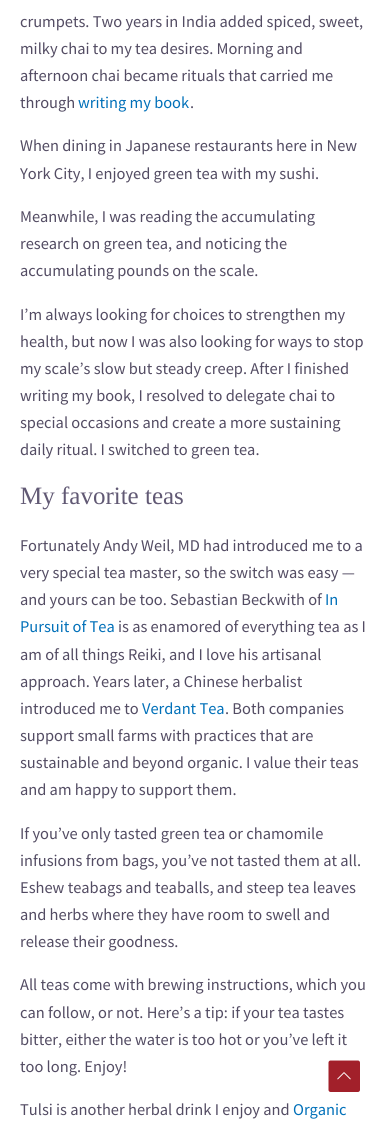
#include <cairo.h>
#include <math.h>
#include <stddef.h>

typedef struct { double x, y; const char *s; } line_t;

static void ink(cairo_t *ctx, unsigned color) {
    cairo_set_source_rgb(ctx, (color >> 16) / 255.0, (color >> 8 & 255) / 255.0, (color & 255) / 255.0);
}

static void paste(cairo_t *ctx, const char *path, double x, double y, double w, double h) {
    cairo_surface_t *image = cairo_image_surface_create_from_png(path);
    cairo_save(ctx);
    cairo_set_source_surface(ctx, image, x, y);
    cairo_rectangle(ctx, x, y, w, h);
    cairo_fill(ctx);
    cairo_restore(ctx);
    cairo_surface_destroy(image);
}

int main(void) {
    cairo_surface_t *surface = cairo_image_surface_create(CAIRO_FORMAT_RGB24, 390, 1122);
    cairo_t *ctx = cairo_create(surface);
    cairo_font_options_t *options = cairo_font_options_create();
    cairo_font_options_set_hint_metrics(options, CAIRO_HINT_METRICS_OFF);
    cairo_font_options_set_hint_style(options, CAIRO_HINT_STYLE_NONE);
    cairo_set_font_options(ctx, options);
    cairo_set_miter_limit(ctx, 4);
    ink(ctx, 0xFFFFFF);
    cairo_paint(ctx);
    cairo_select_font_face(ctx, "Source Sans Pro", CAIRO_FONT_SLANT_NORMAL, CAIRO_FONT_WEIGHT_NORMAL);
    cairo_set_font_size(ctx, 16.4);
    ink(ctx, 0x534C63);
    {
        static const line_t items[] = {
            {20, 27, "crumpets. Two years in India added spiced, sweet,"},
            {20, 54, "milky chai to my tea desires. Morning and"},
            {20, 81, "afternoon chai became rituals that carried me"},
            {20, 108, "through"},
        };
        for (size_t i = 0; i < sizeof items / sizeof *items; i++) {
            cairo_move_to(ctx, items[i].x, items[i].y);
            cairo_show_text(ctx, items[i].s);
        }
    }
    ink(ctx, 0x0170B9);
    cairo_move_to(ctx, 78, 108);
    cairo_show_text(ctx, "writing my book");
    ink(ctx, 0x534C63);
    {
        static const line_t items[] = {
            {190, 108, "."},
            {20, 151, "When dining in Japanese restaurants here in New"},
            {20, 179, "York City, I enjoyed green tea with my sushi."},
            {20, 222, "Meanwhile, I was reading the accumulating"},
            {20, 249, "research on green tea, and noticing the"},
            {20, 276, "accumulating pounds on the scale."},
            {20, 320, "I’m always looking for choices to strengthen my"},
            {20, 347, "health, but now I was also looking for ways to stop"},
            {20, 374, "my scale’s slow but steady creep. After I finished"},
            {20, 401, "writing my book, I resolved to delegate chai to"},
            {20, 428, "special occasions and create a more sustaining"},
            {20, 455, "daily ritual. I switched to green tea."},
        };
        for (size_t i = 0; i < sizeof items / sizeof *items; i++) {
            cairo_move_to(ctx, items[i].x, items[i].y);
            cairo_show_text(ctx, items[i].s);
        }
    }
    cairo_select_font_face(ctx, "Liberation Serif", CAIRO_FONT_SLANT_NORMAL, CAIRO_FONT_WEIGHT_NORMAL);
    cairo_set_font_size(ctx, 25);
    ink(ctx, 0x615974);
    cairo_move_to(ctx, 20, 504);
    cairo_show_text(ctx, "My favorite teas");
    cairo_select_font_face(ctx, "Source Sans Pro", CAIRO_FONT_SLANT_NORMAL, CAIRO_FONT_WEIGHT_NORMAL);
    cairo_set_font_size(ctx, 16.4);
    ink(ctx, 0x534C63);
    {
        static const line_t items[] = {
            {20, 551, "Fortunately Andy Weil, MD had introduced me to a"},
            {20, 578, "very special tea master, so the switch was easy —"},
            {20, 605, "and yours can be too. Sebastian Beckwith of"},
        };
        for (size_t i = 0; i < sizeof items / sizeof *items; i++) {
            cairo_move_to(ctx, items[i].x, items[i].y);
            cairo_show_text(ctx, items[i].s);
        }
    }
    ink(ctx, 0x0170B9);
    cairo_move_to(ctx, 325, 605);
    cairo_show_text(ctx, "In");
    cairo_move_to(ctx, 20, 632);
    cairo_show_text(ctx, "Pursuit of Tea");
    ink(ctx, 0x534C63);
    {
        static const line_t items[] = {
            {118, 632, "is as enamored of everything tea as I"},
            {20, 660, "am of all things Reiki, and I love his artisanal"},
            {20, 687, "approach. Years later, a Chinese herbalist"},
            {20, 714, "introduced me to"},
        };
        for (size_t i = 0; i < sizeof items / sizeof *items; i++) {
            cairo_move_to(ctx, items[i].x, items[i].y);
            cairo_show_text(ctx, items[i].s);
        }
    }
    ink(ctx, 0x0170B9);
    cairo_move_to(ctx, 142, 714);
    cairo_show_text(ctx, "Verdant Tea");
    ink(ctx, 0x534C63);
    {
        static const line_t items[] = {
            {225, 714, ". Both companies"},
            {20, 741, "support small farms with practices that are"},
            {20, 768, "sustainable and beyond organic. I value their teas"},
            {20, 795, "and am happy to support them."},
            {20, 839, "If you’ve only tasted green tea or chamomile"},
            {20, 866, "infusions from bags, you’ve not tasted them at all."},
            {20, 893, "Eshew teabags and teaballs, and steep tea leaves"},
            {20, 920, "and herbs where they have room to swell and"},
            {20, 947, "release their goodness."},
            {20, 990, "All teas come with brewing instructions, which you"},
            {20, 1018, "can follow, or not. Here’s a tip: if your tea tastes"},
            {20, 1045, "bitter, either the water is too hot or you’ve left it"},
            {20, 1072, "too long. Enjoy!"},
            {20, 1115, "Tulsi is another herbal drink I enjoy and"},
        };
        for (size_t i = 0; i < sizeof items / sizeof *items; i++) {
            cairo_move_to(ctx, items[i].x, items[i].y);
            cairo_show_text(ctx, items[i].s);
        }
    }
    ink(ctx, 0x0170B9);
    cairo_move_to(ctx, 293, 1115);
    cairo_show_text(ctx, "Organic");
    ink(ctx, 0xA2202A);
    cairo_new_path(ctx);
    cairo_move_to(ctx, 358, 1092);
    cairo_line_to(ctx, 330.5, 1092);
    cairo_curve_to(ctx, 329.5, 1092, 328.5, 1091, 328.5, 1090);
    cairo_line_to(ctx, 328.5, 1062.5);
    cairo_curve_to(ctx, 328.5, 1061.5, 329.5, 1060.5, 330.5, 1060.5);
    cairo_line_to(ctx, 358, 1060.5);
    cairo_curve_to(ctx, 359, 1060.5, 360, 1061.5, 360, 1062.5);
    cairo_line_to(ctx, 360, 1090);
    cairo_curve_to(ctx, 360, 1091, 359, 1092, 358, 1092);
    cairo_close_path(ctx);
    cairo_fill(ctx);
    paste(ctx, "media/1.png", 337, 1072, 14, 8);
    cairo_surface_write_to_png(surface, "image.png");
    cairo_font_options_destroy(options);
    cairo_destroy(ctx);
    cairo_surface_destroy(surface);
    return 0;
}
